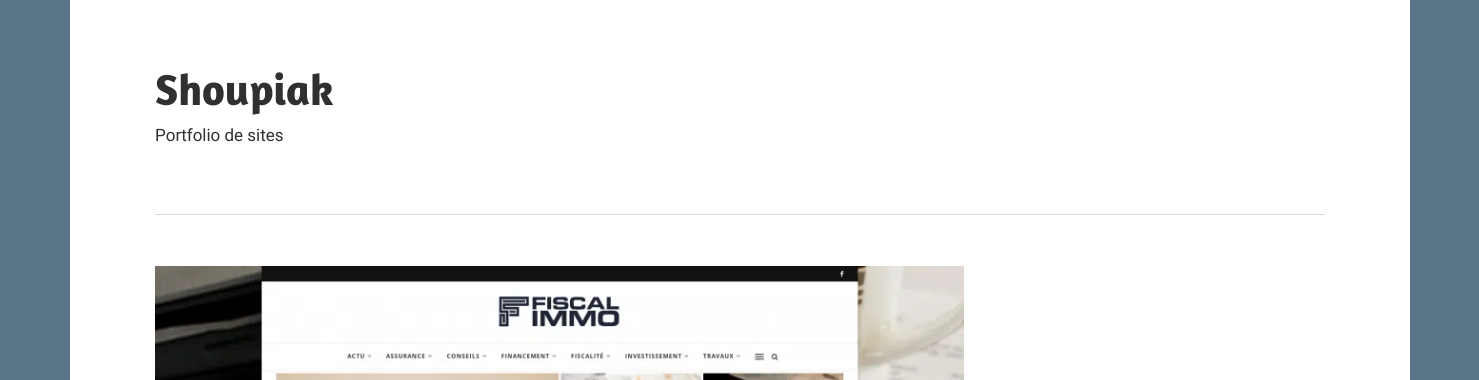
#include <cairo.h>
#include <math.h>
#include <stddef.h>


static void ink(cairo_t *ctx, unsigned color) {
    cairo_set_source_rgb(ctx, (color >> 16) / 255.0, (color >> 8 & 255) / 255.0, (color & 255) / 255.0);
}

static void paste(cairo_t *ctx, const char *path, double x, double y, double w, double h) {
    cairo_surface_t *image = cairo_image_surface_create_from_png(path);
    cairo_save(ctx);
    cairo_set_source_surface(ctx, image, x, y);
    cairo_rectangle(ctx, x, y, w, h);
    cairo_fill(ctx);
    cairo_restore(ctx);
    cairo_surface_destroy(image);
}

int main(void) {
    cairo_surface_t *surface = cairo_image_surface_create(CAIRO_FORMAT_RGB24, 1479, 380);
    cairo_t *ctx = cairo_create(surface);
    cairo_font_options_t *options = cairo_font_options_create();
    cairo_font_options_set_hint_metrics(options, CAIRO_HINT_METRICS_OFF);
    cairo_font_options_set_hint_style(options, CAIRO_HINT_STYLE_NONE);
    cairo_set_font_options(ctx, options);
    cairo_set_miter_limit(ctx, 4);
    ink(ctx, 0x587688);
    cairo_paint(ctx);
    ink(ctx, 0xFFFFFF);
    cairo_rectangle(ctx, 70, 0, 1340, 380);
    cairo_fill(ctx);
    cairo_select_font_face(ctx, "Amaranth", CAIRO_FONT_SLANT_NORMAL, CAIRO_FONT_WEIGHT_BOLD);
    cairo_set_font_size(ctx, 44);
    ink(ctx, 0x303030);
    cairo_move_to(ctx, 155, 105);
    cairo_show_text(ctx, "Shoupiak");
    cairo_select_font_face(ctx, "Roboto", CAIRO_FONT_SLANT_NORMAL, CAIRO_FONT_WEIGHT_NORMAL);
    cairo_set_font_size(ctx, 17);
    cairo_move_to(ctx, 155, 141);
    cairo_show_text(ctx, "Portfolio de sites");
    ink(ctx, 0xD9D9D9);
    cairo_rectangle(ctx, 155, 214, 1170, 1);
    cairo_fill(ctx);
    paste(ctx, "media/1.png", 155, 266, 809, 114);
    cairo_surface_write_to_png(surface, "image.png");
    cairo_font_options_destroy(options);
    cairo_destroy(ctx);
    cairo_surface_destroy(surface);
    return 0;
}
